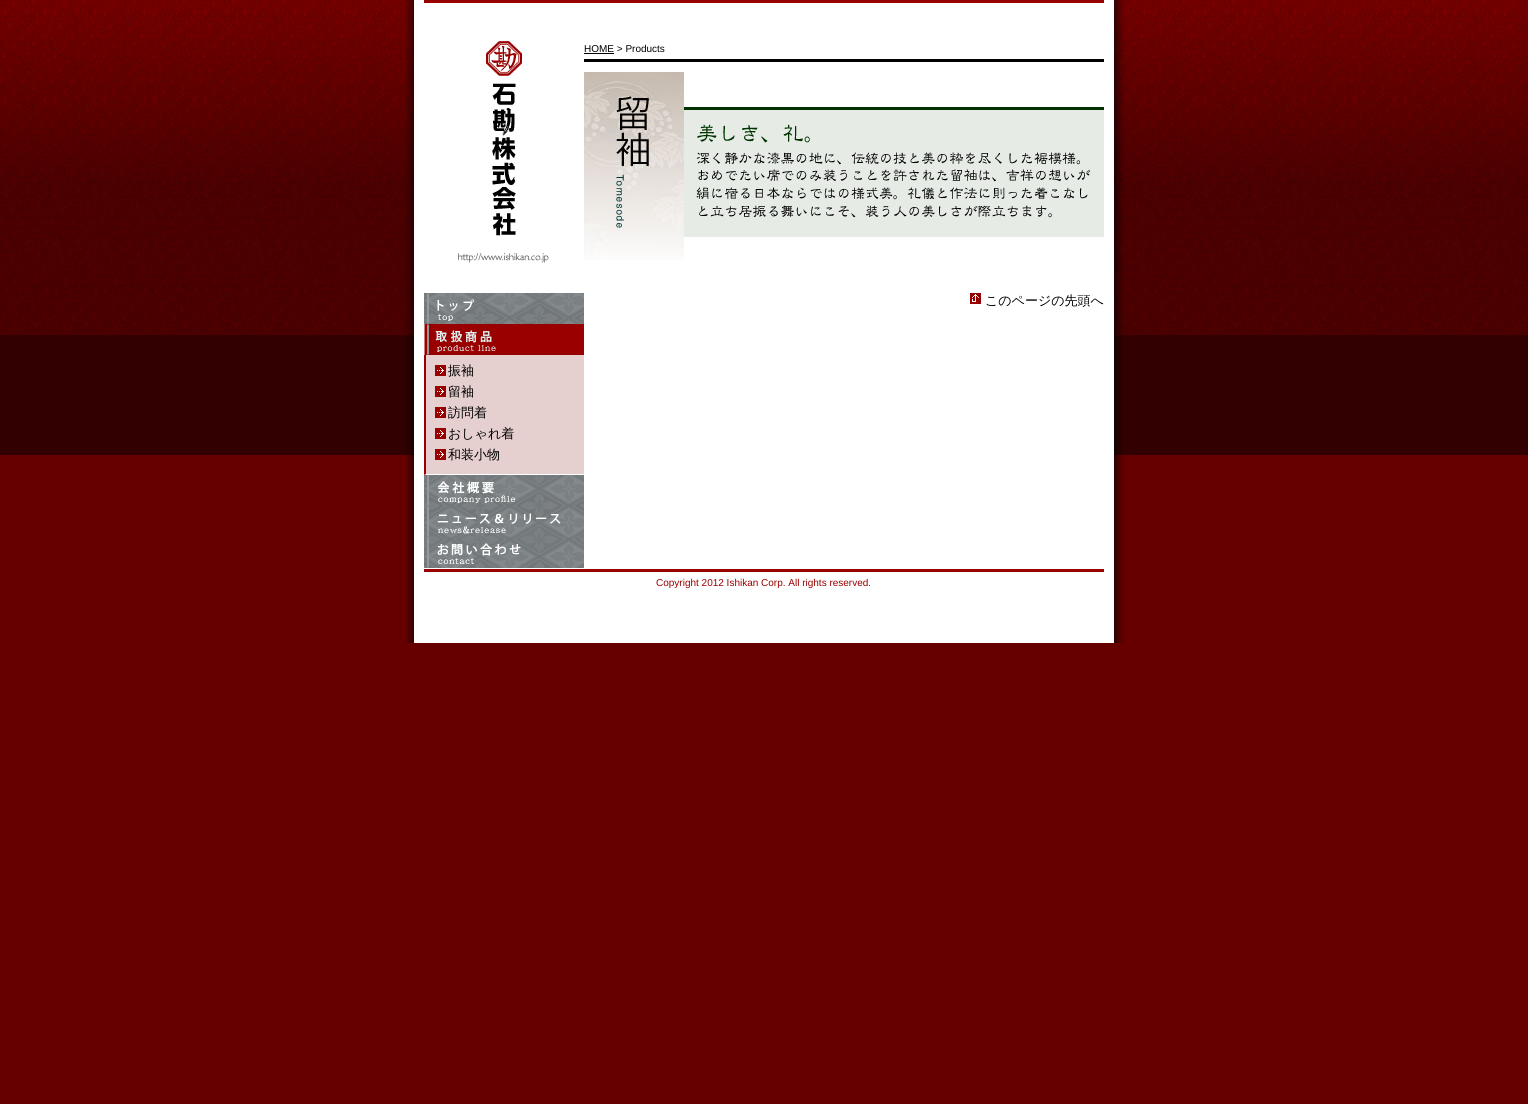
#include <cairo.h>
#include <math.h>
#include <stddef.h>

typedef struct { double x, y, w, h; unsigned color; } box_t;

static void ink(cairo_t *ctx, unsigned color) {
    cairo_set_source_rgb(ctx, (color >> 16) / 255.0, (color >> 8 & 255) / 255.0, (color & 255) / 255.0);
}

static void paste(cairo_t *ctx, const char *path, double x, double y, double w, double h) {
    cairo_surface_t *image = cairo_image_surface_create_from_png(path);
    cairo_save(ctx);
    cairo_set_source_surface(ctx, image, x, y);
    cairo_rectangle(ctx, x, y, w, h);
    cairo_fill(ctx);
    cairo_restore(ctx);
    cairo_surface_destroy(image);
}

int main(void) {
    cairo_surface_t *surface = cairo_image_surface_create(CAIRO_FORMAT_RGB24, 1528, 1104);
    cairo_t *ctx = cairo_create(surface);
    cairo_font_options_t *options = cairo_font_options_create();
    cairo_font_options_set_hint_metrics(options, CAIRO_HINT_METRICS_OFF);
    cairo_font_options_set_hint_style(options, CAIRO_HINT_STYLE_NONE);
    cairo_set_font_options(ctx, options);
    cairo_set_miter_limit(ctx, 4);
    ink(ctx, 0x660000);
    cairo_paint(ctx);
    paste(ctx, "media/1.png", 0, 0, 1528, 455);
    paste(ctx, "media/2.png", 404, 0, 20, 643);
    paste(ctx, "media/3.png", 404, 0, 13, 455);
    {
        static const box_t items[] = {
            {424, 3, 680, 640, 0xFFFFFF},
            {424, 0, 680, 3, 0x990000},
            {584, 59, 520, 3, 0x000000},
        };
        for (size_t i = 0; i < sizeof items / sizeof *items; i++) {
            ink(ctx, items[i].color);
            cairo_rectangle(ctx, items[i].x, items[i].y, items[i].w, items[i].h);
            cairo_fill(ctx);
        }
    }
    cairo_select_font_face(ctx, "Liberation Sans", CAIRO_FONT_SLANT_NORMAL, CAIRO_FONT_WEIGHT_NORMAL);
    cairo_set_font_size(ctx, 10);
    cairo_move_to(ctx, 584, 52);
    cairo_show_text(ctx, "HOME > Products");
    cairo_rectangle(ctx, 584, 53, 30, 1);
    cairo_fill(ctx);
    paste(ctx, "media/4.png", 584, 72, 100, 188);
    paste(ctx, "media/5.png", 684, 107, 420, 130);
    paste(ctx, "media/6.png", 970, 293, 11, 11);
    cairo_select_font_face(ctx, "WenQuanYi Zen Hei Medium", CAIRO_FONT_SLANT_NORMAL, CAIRO_FONT_WEIGHT_NORMAL);
    cairo_set_font_size(ctx, 13);
    cairo_move_to(ctx, 985, 305);
    cairo_show_text(ctx, "このページの先頭へ");
    paste(ctx, "media/7.png", 424, 3, 160, 290);
    paste(ctx, "media/8.png", 424, 293, 160, 31);
    paste(ctx, "media/9.png", 424, 324, 160, 31);
    ink(ctx, 0xE6CFCF);
    cairo_rectangle(ctx, 424, 355, 160, 120);
    cairo_fill(ctx);
    ink(ctx, 0xFFFFFF);
    cairo_new_path(ctx);
    cairo_move_to(ctx, 584, 475);
    cairo_line_to(ctx, 424, 475);
    cairo_line_to(ctx, 426, 474);
    cairo_line_to(ctx, 584, 474);
    cairo_close_path(ctx);
    cairo_fill(ctx);
    ink(ctx, 0x990000);
    cairo_new_path(ctx);
    cairo_move_to(ctx, 424, 475);
    cairo_line_to(ctx, 424, 355);
    cairo_line_to(ctx, 426, 355);
    cairo_line_to(ctx, 426, 474);
    cairo_close_path(ctx);
    cairo_fill(ctx);
    paste(ctx, "media/10.png", 435, 365, 11, 11);
    ink(ctx, 0x000000);
    cairo_move_to(ctx, 448, 375);
    cairo_show_text(ctx, "振袖");
    paste(ctx, "media/10.png", 435, 386, 11, 11);
    cairo_move_to(ctx, 448, 396);
    cairo_show_text(ctx, "留袖");
    paste(ctx, "media/10.png", 435, 407, 11, 11);
    cairo_move_to(ctx, 448, 417);
    cairo_show_text(ctx, "訪問着");
    paste(ctx, "media/10.png", 435, 428, 11, 11);
    cairo_move_to(ctx, 448, 438);
    cairo_show_text(ctx, "おしゃれ着");
    paste(ctx, "media/10.png", 435, 449, 11, 11);
    cairo_move_to(ctx, 448, 459);
    cairo_show_text(ctx, "和装小物");
    paste(ctx, "media/11.png", 424, 475, 160, 31);
    paste(ctx, "media/12.png", 424, 506, 160, 31);
    paste(ctx, "media/13.png", 424, 537, 160, 31);
    ink(ctx, 0x990000);
    cairo_rectangle(ctx, 424, 569, 680, 3);
    cairo_fill(ctx);
    cairo_select_font_face(ctx, "Liberation Sans", CAIRO_FONT_SLANT_NORMAL, CAIRO_FONT_WEIGHT_NORMAL);
    cairo_set_font_size(ctx, 10);
    cairo_move_to(ctx, 656, 586);
    cairo_show_text(ctx, "Copyright 2012 Ishikan Corp. All rights reserved.");
    paste(ctx, "media/14.png", 1104, 0, 20, 643);
    paste(ctx, "media/15.png", 1112, 0, 12, 455);
    cairo_surface_write_to_png(surface, "image.png");
    cairo_font_options_destroy(options);
    cairo_destroy(ctx);
    cairo_surface_destroy(surface);
    return 0;
}
